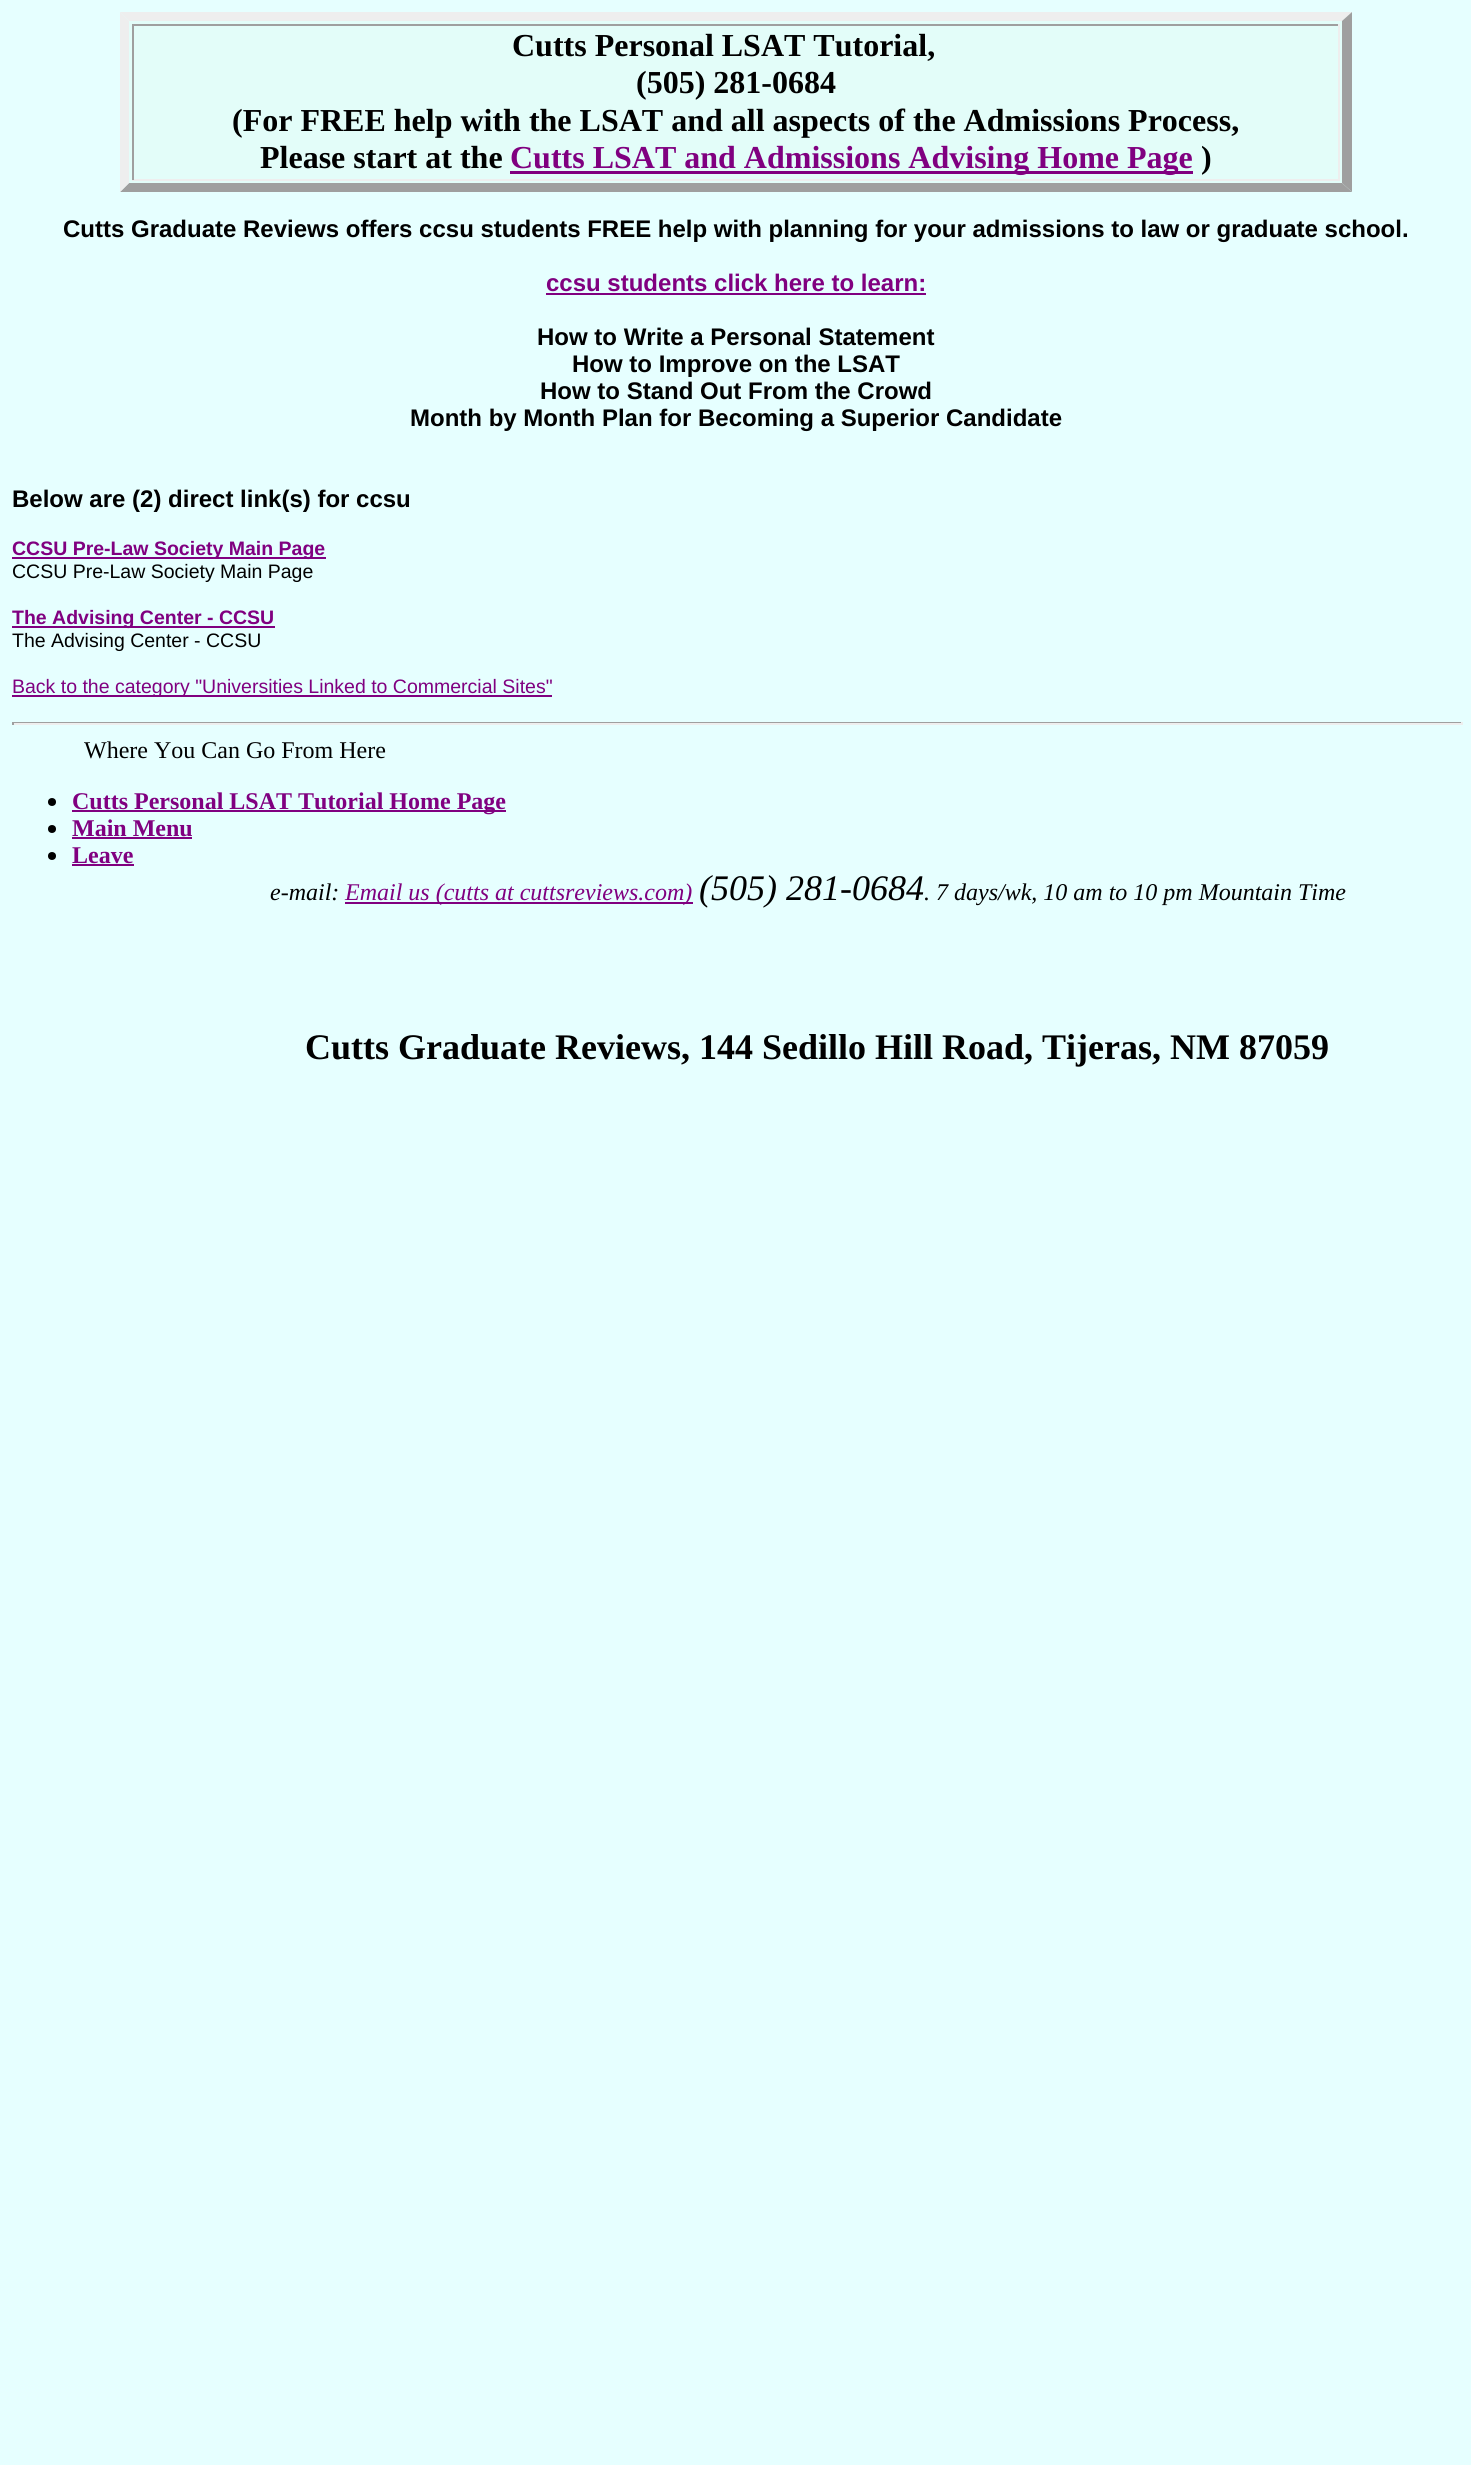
#include <cairo.h>
#include <math.h>
#include <stddef.h>

typedef struct { double x, y; const char *s; } line_t;
typedef struct { double x, y, w, h; unsigned color; } box_t;

static void ink(cairo_t *ctx, unsigned color) {
    cairo_set_source_rgb(ctx, (color >> 16) / 255.0, (color >> 8 & 255) / 255.0, (color & 255) / 255.0);
}

int main(void) {
    cairo_surface_t *surface = cairo_image_surface_create(CAIRO_FORMAT_RGB24, 1471, 2465);
    cairo_t *ctx = cairo_create(surface);
    cairo_font_options_t *options = cairo_font_options_create();
    cairo_font_options_set_hint_metrics(options, CAIRO_HINT_METRICS_OFF);
    cairo_font_options_set_hint_style(options, CAIRO_HINT_STYLE_NONE);
    cairo_set_font_options(ctx, options);
    cairo_set_miter_limit(ctx, 4);
    ink(ctx, 0xE6FFFF);
    cairo_paint(ctx);
    ink(ctx, 0xE3FDF9);
    cairo_rectangle(ctx, 120, 12, 1232, 180);
    cairo_fill(ctx);
    ink(ctx, 0xEEEEEE);
    cairo_new_path(ctx);
    cairo_move_to(ctx, 120, 12);
    cairo_line_to(ctx, 1352, 12);
    cairo_line_to(ctx, 1342, 21);
    cairo_line_to(ctx, 129, 21);
    cairo_close_path(ctx);
    cairo_fill(ctx);
    ink(ctx, 0x9F9F9F);
    cairo_new_path(ctx);
    cairo_move_to(ctx, 1352, 12);
    cairo_line_to(ctx, 1352, 192);
    cairo_line_to(ctx, 1342, 183);
    cairo_line_to(ctx, 1342, 21);
    cairo_close_path(ctx);
    cairo_fill(ctx);
    cairo_new_path(ctx);
    cairo_move_to(ctx, 1352, 192);
    cairo_line_to(ctx, 120, 192);
    cairo_line_to(ctx, 129, 183);
    cairo_line_to(ctx, 1342, 183);
    cairo_close_path(ctx);
    cairo_fill(ctx);
    ink(ctx, 0xEEEEEE);
    cairo_new_path(ctx);
    cairo_move_to(ctx, 120, 192);
    cairo_line_to(ctx, 120, 12);
    cairo_line_to(ctx, 129, 21);
    cairo_line_to(ctx, 129, 183);
    cairo_close_path(ctx);
    cairo_fill(ctx);
    {
        static const box_t items[] = {
            {132, 24, 1208, 2, 0x9F9F9F},
            {1338, 24, 2, 156, 0xEEEEEE},
            {132, 179, 1208, 2, 0xEEEEEE},
            {132, 24, 2, 156, 0x9F9F9F},
        };
        for (size_t i = 0; i < sizeof items / sizeof *items; i++) {
            ink(ctx, items[i].color);
            cairo_rectangle(ctx, items[i].x, items[i].y, items[i].w, items[i].h);
            cairo_fill(ctx);
        }
    }
    cairo_select_font_face(ctx, "Liberation Serif", CAIRO_FONT_SLANT_NORMAL, CAIRO_FONT_WEIGHT_BOLD);
    cairo_set_font_size(ctx, 32);
    ink(ctx, 0x000000);
    {
        static const line_t items[] = {
            {512, 56, "Cutts Personal LSAT Tutorial,"},
            {636, 93, "(505) 281-0684"},
            {232, 131, "(For FREE help with the LSAT and all aspects of the Admissions Process,"},
            {260, 168, "Please start at the"},
        };
        for (size_t i = 0; i < sizeof items / sizeof *items; i++) {
            cairo_move_to(ctx, items[i].x, items[i].y);
            cairo_show_text(ctx, items[i].s);
        }
    }
    ink(ctx, 0x800080);
    cairo_rectangle(ctx, 510, 171, 683, 3);
    cairo_fill(ctx);
    cairo_move_to(ctx, 510, 168);
    cairo_show_text(ctx, "Cutts LSAT and Admissions Advising Home Page");
    ink(ctx, 0x000000);
    cairo_move_to(ctx, 1201, 168);
    cairo_show_text(ctx, ")");
    cairo_select_font_face(ctx, "Liberation Sans", CAIRO_FONT_SLANT_NORMAL, CAIRO_FONT_WEIGHT_BOLD);
    cairo_set_font_size(ctx, 24);
    cairo_move_to(ctx, 63, 237);
    cairo_show_text(ctx, "Cutts Graduate Reviews offers ccsu students FREE help with planning for your admissions to law or graduate school.");
    ink(ctx, 0x800080);
    cairo_move_to(ctx, 546, 291);
    cairo_show_text(ctx, "ccsu students click here to learn:");
    cairo_rectangle(ctx, 546, 293, 380, 2);
    cairo_fill(ctx);
    ink(ctx, 0x000000);
    {
        static const line_t items[] = {
            {537, 345, "How to Write a Personal Statement"},
            {572, 372, "How to Improve on the LSAT"},
            {540, 399, "How to Stand Out From the Crowd"},
            {410, 426, "Month by Month Plan for Becoming a Superior Candidate"},
            {12, 507, "Below are (2) direct link(s) for ccsu"},
        };
        for (size_t i = 0; i < sizeof items / sizeof *items; i++) {
            cairo_move_to(ctx, items[i].x, items[i].y);
            cairo_show_text(ctx, items[i].s);
        }
    }
    ink(ctx, 0x800080);
    cairo_rectangle(ctx, 12, 557, 314, 2);
    cairo_fill(ctx);
    cairo_set_font_size(ctx, 19.5);
    cairo_move_to(ctx, 12, 555);
    cairo_show_text(ctx, "CCSU Pre-Law Society Main Page");
    cairo_select_font_face(ctx, "Liberation Sans", CAIRO_FONT_SLANT_NORMAL, CAIRO_FONT_WEIGHT_NORMAL);
    ink(ctx, 0x000000);
    cairo_move_to(ctx, 12, 578);
    cairo_show_text(ctx, "CCSU Pre-Law Society Main Page");
    ink(ctx, 0x800080);
    cairo_rectangle(ctx, 12, 626, 263, 2);
    cairo_fill(ctx);
    cairo_select_font_face(ctx, "Liberation Sans", CAIRO_FONT_SLANT_NORMAL, CAIRO_FONT_WEIGHT_BOLD);
    cairo_move_to(ctx, 12, 624);
    cairo_show_text(ctx, "The Advising Center - CCSU");
    cairo_select_font_face(ctx, "Liberation Sans", CAIRO_FONT_SLANT_NORMAL, CAIRO_FONT_WEIGHT_NORMAL);
    ink(ctx, 0x000000);
    cairo_move_to(ctx, 12, 647);
    cairo_show_text(ctx, "The Advising Center - CCSU");
    ink(ctx, 0x800080);
    cairo_rectangle(ctx, 12, 695, 540, 2);
    cairo_fill(ctx);
    cairo_move_to(ctx, 12, 693);
    cairo_show_text(ctx, "Back to the category \"Universities Linked to Commercial Sites\"");
    {
        static const box_t items[] = {
            {12, 722, 1451, 1, 0x9F9F9F},
            {1461, 722, 2, 3, 0xEEEEEE},
            {12, 723, 1451, 2, 0xEEEEEE},
            {12, 722, 2, 3, 0x9F9F9F},
        };
        for (size_t i = 0; i < sizeof items / sizeof *items; i++) {
            ink(ctx, items[i].color);
            cairo_rectangle(ctx, items[i].x, items[i].y, items[i].w, items[i].h);
            cairo_fill(ctx);
        }
    }
    cairo_select_font_face(ctx, "Liberation Serif", CAIRO_FONT_SLANT_NORMAL, CAIRO_FONT_WEIGHT_NORMAL);
    cairo_set_font_size(ctx, 24);
    ink(ctx, 0x000000);
    cairo_move_to(ctx, 84, 758);
    cairo_show_text(ctx, "Where You Can Go From Here");
    cairo_new_path(ctx);
    cairo_arc(ctx, 52, 802, 4, 0, 2 * M_PI);
    cairo_fill(ctx);
    ink(ctx, 0x800080);
    cairo_rectangle(ctx, 72, 810, 434, 2);
    cairo_fill(ctx);
    cairo_select_font_face(ctx, "Liberation Serif", CAIRO_FONT_SLANT_NORMAL, CAIRO_FONT_WEIGHT_BOLD);
    cairo_move_to(ctx, 72, 809);
    cairo_show_text(ctx, "Cutts Personal LSAT Tutorial Home Page");
    ink(ctx, 0x000000);
    cairo_new_path(ctx);
    cairo_arc(ctx, 52, 829, 4, 0, 2 * M_PI);
    cairo_fill(ctx);
    ink(ctx, 0x800080);
    cairo_move_to(ctx, 72, 836);
    cairo_show_text(ctx, "Main Menu");
    cairo_rectangle(ctx, 72, 837, 120, 2);
    cairo_fill(ctx);
    ink(ctx, 0x000000);
    cairo_arc(ctx, 52, 856, 4, 0, 2 * M_PI);
    cairo_fill(ctx);
    ink(ctx, 0x800080);
    cairo_move_to(ctx, 72, 863);
    cairo_show_text(ctx, "Leave");
    cairo_rectangle(ctx, 72, 864, 62, 2);
    cairo_fill(ctx);
    cairo_select_font_face(ctx, "Liberation Serif", CAIRO_FONT_SLANT_ITALIC, CAIRO_FONT_WEIGHT_NORMAL);
    ink(ctx, 0x000000);
    cairo_move_to(ctx, 270, 900);
    cairo_show_text(ctx, "e-mail:");
    ink(ctx, 0x800080);
    cairo_rectangle(ctx, 345, 902, 348, 2);
    cairo_fill(ctx);
    cairo_move_to(ctx, 345, 900);
    cairo_show_text(ctx, "Email us (cutts at cuttsreviews.com)");
    cairo_set_font_size(ctx, 36);
    ink(ctx, 0x000000);
    cairo_move_to(ctx, 699, 900);
    cairo_show_text(ctx, "(505) 281-0684");
    cairo_set_font_size(ctx, 24);
    cairo_move_to(ctx, 924, 900);
    cairo_show_text(ctx, ". 7 days/wk, 10 am to 10 pm Mountain Time");
    cairo_select_font_face(ctx, "Liberation Serif", CAIRO_FONT_SLANT_NORMAL, CAIRO_FONT_WEIGHT_BOLD);
    cairo_set_font_size(ctx, 36);
    cairo_move_to(ctx, 305, 1059);
    cairo_show_text(ctx, "Cutts Graduate Reviews, 144 Sedillo Hill Road, Tijeras, NM 87059");
    cairo_surface_write_to_png(surface, "image.png");
    cairo_font_options_destroy(options);
    cairo_destroy(ctx);
    cairo_surface_destroy(surface);
    return 0;
}
